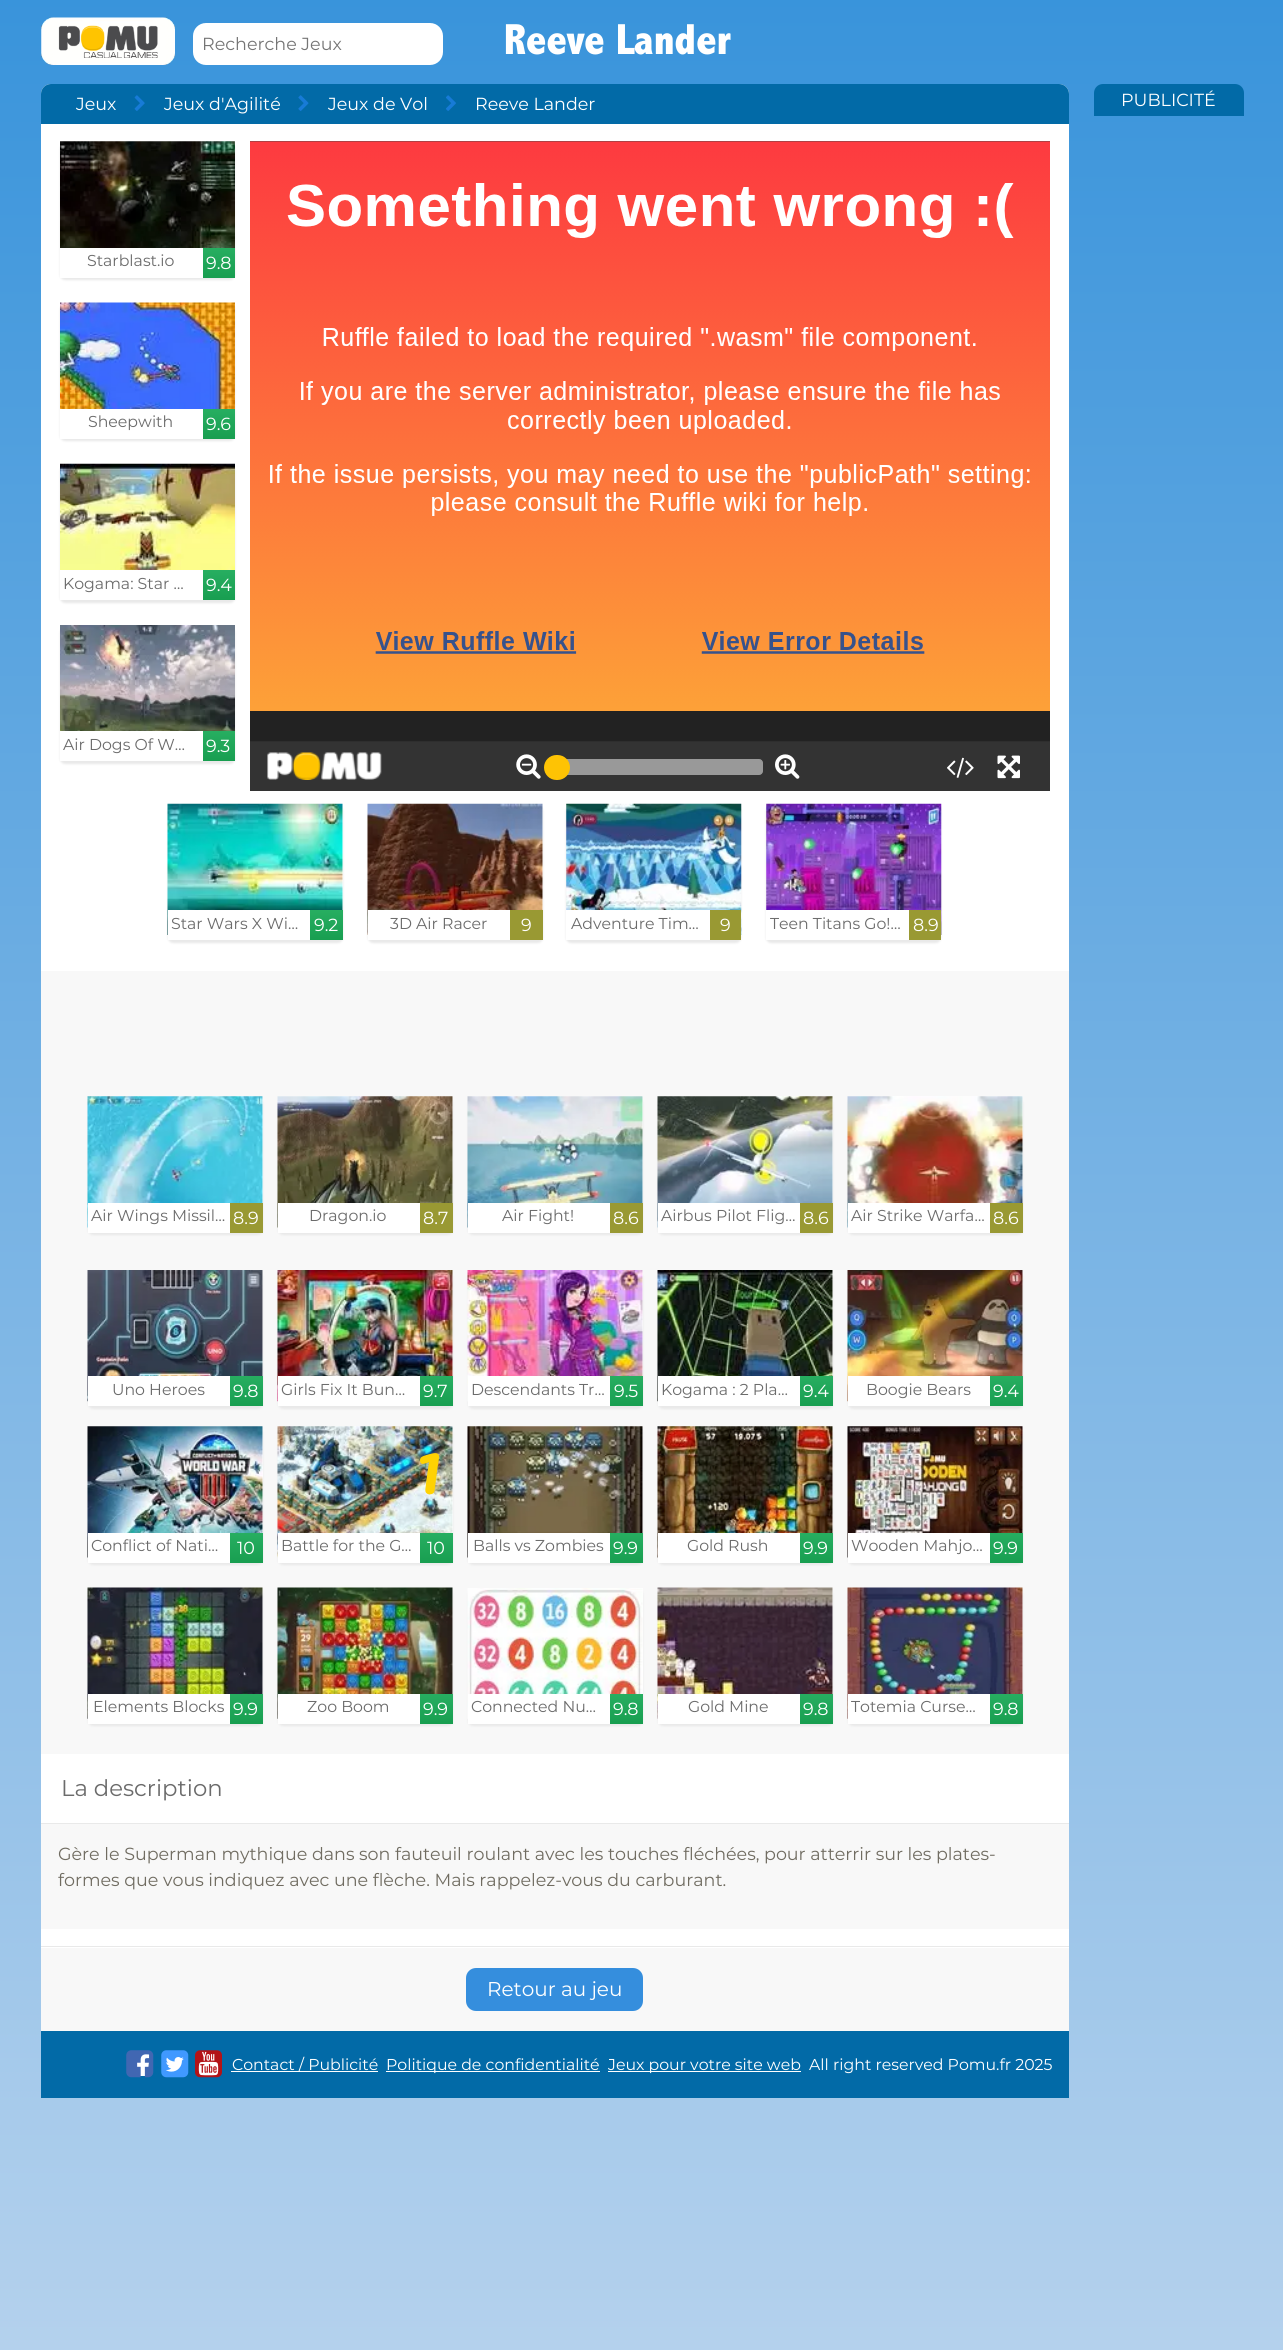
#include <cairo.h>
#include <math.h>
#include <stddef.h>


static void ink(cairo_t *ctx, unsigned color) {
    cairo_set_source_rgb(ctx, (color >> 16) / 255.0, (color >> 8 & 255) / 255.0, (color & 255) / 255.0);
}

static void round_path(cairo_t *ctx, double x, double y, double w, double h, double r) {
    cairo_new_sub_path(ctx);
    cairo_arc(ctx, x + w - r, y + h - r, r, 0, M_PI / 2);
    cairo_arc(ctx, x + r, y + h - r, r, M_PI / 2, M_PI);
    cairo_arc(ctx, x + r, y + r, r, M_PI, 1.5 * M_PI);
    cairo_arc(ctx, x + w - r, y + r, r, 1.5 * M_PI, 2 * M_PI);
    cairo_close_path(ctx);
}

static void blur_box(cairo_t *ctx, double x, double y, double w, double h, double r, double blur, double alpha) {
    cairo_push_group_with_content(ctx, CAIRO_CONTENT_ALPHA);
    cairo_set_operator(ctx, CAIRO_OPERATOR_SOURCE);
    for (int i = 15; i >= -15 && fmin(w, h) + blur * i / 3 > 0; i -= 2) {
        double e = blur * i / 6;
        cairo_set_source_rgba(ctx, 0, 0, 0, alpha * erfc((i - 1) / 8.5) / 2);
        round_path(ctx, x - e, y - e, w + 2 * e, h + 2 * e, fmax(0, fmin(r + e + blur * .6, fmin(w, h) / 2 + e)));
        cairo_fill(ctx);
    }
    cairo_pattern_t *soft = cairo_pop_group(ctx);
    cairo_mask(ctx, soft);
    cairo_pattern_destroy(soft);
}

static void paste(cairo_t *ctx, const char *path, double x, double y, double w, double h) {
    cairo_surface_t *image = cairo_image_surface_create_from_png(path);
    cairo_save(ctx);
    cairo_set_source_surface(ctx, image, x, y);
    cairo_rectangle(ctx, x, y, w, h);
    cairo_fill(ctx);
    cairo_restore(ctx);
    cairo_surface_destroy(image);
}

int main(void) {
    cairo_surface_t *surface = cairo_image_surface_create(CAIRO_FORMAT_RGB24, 1283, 2350);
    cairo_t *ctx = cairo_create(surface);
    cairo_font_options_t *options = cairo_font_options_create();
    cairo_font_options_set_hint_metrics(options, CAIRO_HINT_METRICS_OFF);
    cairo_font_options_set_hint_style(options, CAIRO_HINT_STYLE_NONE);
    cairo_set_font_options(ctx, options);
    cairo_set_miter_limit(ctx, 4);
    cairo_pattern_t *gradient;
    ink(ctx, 0xFFFFFF);
    cairo_paint(ctx);
    gradient = cairo_pattern_create_linear(642, 0, 642, 2350);
    cairo_pattern_add_color_stop_rgba(gradient, 0, 0.224, 0.58, 0.859, 1);
    cairo_pattern_add_color_stop_rgba(gradient, 1, 0.706, 0.82, 0.929, 1);
    cairo_set_source(ctx, gradient);
    cairo_pattern_destroy(gradient);
    cairo_rectangle(ctx, 0, 0, 1283, 2350);
    cairo_fill(ctx);
    paste(ctx, "media/1.png", 41, 17, 134, 48);
    ink(ctx, 0xFFFFFF);
    round_path(ctx, 193, 23, 250, 42, 13);
    cairo_fill(ctx);
    cairo_select_font_face(ctx, "Montserrat", CAIRO_FONT_SLANT_NORMAL, CAIRO_FONT_WEIGHT_NORMAL);
    cairo_set_font_size(ctx, 17.5);
    ink(ctx, 0x757575);
    cairo_move_to(ctx, 202, 50);
    cairo_show_text(ctx, "Recherche Jeux");
    cairo_select_font_face(ctx, "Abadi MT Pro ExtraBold", CAIRO_FONT_SLANT_NORMAL, CAIRO_FONT_WEIGHT_NORMAL);
    cairo_set_font_size(ctx, 43.75);
    ink(ctx, 0xFFFFFF);
    cairo_move_to(ctx, 504, 54);
    cairo_show_text(ctx, "Reeve Lander");
    ink(ctx, 0xF8F8F8);
    cairo_new_path(ctx);
    cairo_move_to(ctx, 51, 84);
    cairo_line_to(ctx, 1059, 84);
    cairo_curve_to(ctx, 1064.5, 84, 1069, 88.5, 1069, 94);
    cairo_line_to(ctx, 1069, 2031);
    cairo_line_to(ctx, 41, 2031);
    cairo_line_to(ctx, 41, 94);
    cairo_curve_to(ctx, 41, 88.5, 45.5, 84, 51, 84);
    cairo_close_path(ctx);
    cairo_fill(ctx);
    ink(ctx, 0x026AA7);
    cairo_new_path(ctx);
    cairo_move_to(ctx, 51, 84);
    cairo_line_to(ctx, 1059, 84);
    cairo_curve_to(ctx, 1064.5, 84, 1069, 88.5, 1069, 94);
    cairo_line_to(ctx, 1069, 124);
    cairo_line_to(ctx, 41, 124);
    cairo_line_to(ctx, 41, 94);
    cairo_curve_to(ctx, 41, 88.5, 45.5, 84, 51, 84);
    cairo_close_path(ctx);
    cairo_fill(ctx);
    cairo_select_font_face(ctx, "Montserrat", CAIRO_FONT_SLANT_NORMAL, CAIRO_FONT_WEIGHT_NORMAL);
    cairo_set_font_size(ctx, 17.5);
    ink(ctx, 0xFFFFFF);
    cairo_move_to(ctx, 76, 110);
    cairo_show_text(ctx, "Jeux");
    paste(ctx, "media/2.png", 134, 95, 11, 16);
    cairo_move_to(ctx, 164, 110);
    cairo_show_text(ctx, "Jeux d'Agilité");
    paste(ctx, "media/3.png", 298, 95, 11, 16);
    cairo_move_to(ctx, 328, 110);
    cairo_show_text(ctx, "Jeux de Vol");
    paste(ctx, "media/4.png", 446, 95, 10, 16);
    cairo_move_to(ctx, 475, 110);
    cairo_show_text(ctx, "Reeve Lander");
    cairo_rectangle(ctx, 41, 124, 1028, 847);
    cairo_fill(ctx);
    ink(ctx, 0xE9E9E9);
    blur_box(ctx, 60, 144, 175, 136, 5, 1, 1);
    paste(ctx, "media/5.png", 60, 141, 175, 107);
    ink(ctx, 0xFFFFFF);
    cairo_rectangle(ctx, 60, 248, 143, 30);
    cairo_fill(ctx);
    cairo_set_font_size(ctx, 15.75);
    ink(ctx, 0x6B6B6B);
    cairo_move_to(ctx, 87, 266);
    cairo_show_text(ctx, "Starblast.io");
    gradient = cairo_pattern_create_linear(219, 248, 219, 278);
    cairo_pattern_add_color_stop_rgba(gradient, 0, 0.153, 0.682, 0.38, 1);
    cairo_pattern_add_color_stop_rgba(gradient, 1, 0.094, 0.62, 0.314, 1);
    cairo_set_source(ctx, gradient);
    cairo_pattern_destroy(gradient);
    cairo_rectangle(ctx, 203, 248, 32, 30);
    cairo_fill(ctx);
    cairo_set_font_size(ctx, 17.5);
    ink(ctx, 0xFFFFFF);
    cairo_move_to(ctx, 206, 269);
    cairo_show_text(ctx, "9.8");
    ink(ctx, 0xE9E9E9);
    blur_box(ctx, 60, 305, 175, 136, 5, 1, 1);
    paste(ctx, "media/6.png", 60, 302, 175, 107);
    ink(ctx, 0xFFFFFF);
    cairo_rectangle(ctx, 60, 409, 143, 30);
    cairo_fill(ctx);
    cairo_set_font_size(ctx, 15.75);
    ink(ctx, 0x6B6B6B);
    cairo_move_to(ctx, 88, 427);
    cairo_show_text(ctx, "Sheepwith");
    gradient = cairo_pattern_create_linear(219, 409, 219, 439);
    cairo_pattern_add_color_stop_rgba(gradient, 0, 0.153, 0.682, 0.38, 1);
    cairo_pattern_add_color_stop_rgba(gradient, 1, 0.094, 0.62, 0.314, 1);
    cairo_set_source(ctx, gradient);
    cairo_pattern_destroy(gradient);
    cairo_rectangle(ctx, 203, 409, 32, 30);
    cairo_fill(ctx);
    cairo_set_font_size(ctx, 17.5);
    ink(ctx, 0xFFFFFF);
    cairo_move_to(ctx, 206, 430);
    cairo_show_text(ctx, "9.6");
    ink(ctx, 0xE9E9E9);
    blur_box(ctx, 60, 466, 175, 137, 5, 1, 1);
    paste(ctx, "media/7.png", 60, 463, 175, 107);
    ink(ctx, 0xFFFFFF);
    cairo_rectangle(ctx, 60, 570, 143, 30);
    cairo_fill(ctx);
    cairo_set_font_size(ctx, 15.75);
    ink(ctx, 0x6B6B6B);
    cairo_move_to(ctx, 63, 589);
    cairo_show_text(ctx, "Kogama: Star …");
    gradient = cairo_pattern_create_linear(219, 570, 219, 600);
    cairo_pattern_add_color_stop_rgba(gradient, 0, 0.153, 0.682, 0.38, 1);
    cairo_pattern_add_color_stop_rgba(gradient, 1, 0.094, 0.62, 0.314, 1);
    cairo_set_source(ctx, gradient);
    cairo_pattern_destroy(gradient);
    cairo_rectangle(ctx, 203, 570, 32, 30);
    cairo_fill(ctx);
    cairo_set_font_size(ctx, 17.5);
    ink(ctx, 0xFFFFFF);
    cairo_move_to(ctx, 206, 591);
    cairo_show_text(ctx, "9.4");
    ink(ctx, 0xE9E9E9);
    blur_box(ctx, 60, 628, 175, 136, 5, 1, 1);
    paste(ctx, "media/8.png", 60, 625, 175, 106);
    ink(ctx, 0xFFFFFF);
    cairo_rectangle(ctx, 60, 731, 143, 30);
    cairo_fill(ctx);
    cairo_set_font_size(ctx, 15.75);
    ink(ctx, 0x6B6B6B);
    cairo_move_to(ctx, 63, 750);
    cairo_show_text(ctx, "Air Dogs Of W…");
    gradient = cairo_pattern_create_linear(219, 731, 219, 761);
    cairo_pattern_add_color_stop_rgba(gradient, 0, 0.153, 0.682, 0.38, 1);
    cairo_pattern_add_color_stop_rgba(gradient, 1, 0.094, 0.62, 0.314, 1);
    cairo_set_source(ctx, gradient);
    cairo_pattern_destroy(gradient);
    cairo_rectangle(ctx, 203, 731, 32, 30);
    cairo_fill(ctx);
    cairo_set_font_size(ctx, 17.5);
    ink(ctx, 0xFFFFFF);
    cairo_move_to(ctx, 206, 752);
    cairo_show_text(ctx, "9.3");
    ink(ctx, 0x333333);
    cairo_rectangle(ctx, 250, 741, 800, 50);
    cairo_fill(ctx);
    paste(ctx, "media/9.png", 250, 141, 800, 601);
    paste(ctx, "media/10.png", 267, 752, 115, 28);
    paste(ctx, "media/11.png", 516, 754, 25, 25);
    ink(ctx, 0x999999);
    round_path(ctx, 554.5, 759.5, 208, 15, 3.5);
    cairo_fill_preserve(ctx);
    cairo_set_line_width(ctx, 1);
    cairo_stroke(ctx);
    ink(ctx, 0xFEC304);
    round_path(ctx, 544, 755, 26, 25, 12.5);
    cairo_fill(ctx);
    paste(ctx, "media/12.png", 775, 754, 25, 25);
    paste(ctx, "media/13.png", 947, 757, 27, 21);
    paste(ctx, "media/14.png", 997, 755, 23, 24);
    ink(ctx, 0xE9E9E9);
    blur_box(ctx, 168, 806, 175, 137, 5, 1, 1);
    ink(ctx, 0xFFFFFF);
    cairo_rectangle(ctx, 342, 804, 1, 106);
    cairo_fill(ctx);
    paste(ctx, "media/15.png", 167, 803, 176, 132);
    cairo_rectangle(ctx, 168, 910, 142, 30);
    cairo_fill(ctx);
    cairo_set_font_size(ctx, 15.75);
    ink(ctx, 0x6B6B6B);
    cairo_move_to(ctx, 171, 929);
    cairo_show_text(ctx, "Star Wars X Wi…");
    gradient = cairo_pattern_create_linear(326, 910, 326, 940);
    cairo_pattern_add_color_stop_rgba(gradient, 0, 0.153, 0.682, 0.38, 1);
    cairo_pattern_add_color_stop_rgba(gradient, 1, 0.094, 0.62, 0.314, 1);
    cairo_set_source(ctx, gradient);
    cairo_pattern_destroy(gradient);
    cairo_rectangle(ctx, 310, 910, 33, 30);
    cairo_fill(ctx);
    cairo_set_font_size(ctx, 17.5);
    ink(ctx, 0xFFFFFF);
    cairo_move_to(ctx, 314, 931);
    cairo_show_text(ctx, "9.2");
    ink(ctx, 0xE9E9E9);
    blur_box(ctx, 368, 806, 175, 137, 5, 1, 1);
    ink(ctx, 0xFFFFFF);
    cairo_rectangle(ctx, 542, 804, 1, 106);
    cairo_fill(ctx);
    paste(ctx, "media/16.png", 367, 803, 176, 132);
    cairo_rectangle(ctx, 368, 910, 142, 30);
    cairo_fill(ctx);
    cairo_set_font_size(ctx, 15.75);
    ink(ctx, 0x6B6B6B);
    cairo_move_to(ctx, 390, 929);
    cairo_show_text(ctx, "3D Air Racer");
    ink(ctx, 0x999933);
    cairo_rectangle(ctx, 510, 910, 33, 30);
    cairo_fill(ctx);
    cairo_set_font_size(ctx, 17.5);
    ink(ctx, 0xFFFFFF);
    cairo_move_to(ctx, 521, 931);
    cairo_show_text(ctx, "9");
    ink(ctx, 0xE9E9E9);
    blur_box(ctx, 566, 806, 175, 137, 5, 1, 1);
    paste(ctx, "media/17.png", 566, 803, 176, 132);
    ink(ctx, 0xFFFFFF);
    cairo_rectangle(ctx, 566, 910, 144, 30);
    cairo_fill(ctx);
    cairo_set_font_size(ctx, 15.75);
    ink(ctx, 0x6B6B6B);
    cairo_move_to(ctx, 571, 929);
    cairo_show_text(ctx, "Adventure Tim…");
    ink(ctx, 0x999933);
    cairo_rectangle(ctx, 710, 910, 31, 30);
    cairo_fill(ctx);
    cairo_set_font_size(ctx, 17.5);
    ink(ctx, 0xFFFFFF);
    cairo_move_to(ctx, 720, 931);
    cairo_show_text(ctx, "9");
    ink(ctx, 0xE9E9E9);
    blur_box(ctx, 766, 806, 175, 137, 5, 1, 1);
    paste(ctx, "media/18.png", 766, 803, 176, 132);
    ink(ctx, 0xFFFFFF);
    cairo_rectangle(ctx, 766, 910, 143, 30);
    cairo_fill(ctx);
    cairo_set_font_size(ctx, 15.75);
    ink(ctx, 0x6B6B6B);
    cairo_move_to(ctx, 770, 929);
    cairo_show_text(ctx, "Teen Titans Go!…");
    ink(ctx, 0x999933);
    cairo_rectangle(ctx, 909, 910, 32, 30);
    cairo_fill(ctx);
    cairo_set_font_size(ctx, 17.5);
    ink(ctx, 0xFFFFFF);
    cairo_move_to(ctx, 913, 931);
    cairo_show_text(ctx, "8.9");
    ink(ctx, 0xE9E9E9);
    blur_box(ctx, 88, 1099, 175, 136, 5, 1, 1);
    ink(ctx, 0xFFFFFF);
    cairo_rectangle(ctx, 88, 1096, 175, 107);
    cairo_fill(ctx);
    paste(ctx, "media/19.png", 87, 1096, 176, 132);
    cairo_rectangle(ctx, 88, 1203, 142, 30);
    cairo_fill(ctx);
    cairo_set_font_size(ctx, 15.75);
    ink(ctx, 0x6B6B6B);
    cairo_move_to(ctx, 91, 1221);
    cairo_show_text(ctx, "Air Wings Missil…");
    ink(ctx, 0x999933);
    cairo_rectangle(ctx, 230, 1203, 33, 30);
    cairo_fill(ctx);
    cairo_set_font_size(ctx, 17.5);
    ink(ctx, 0xFFFFFF);
    cairo_move_to(ctx, 233, 1224);
    cairo_show_text(ctx, "8.9");
    ink(ctx, 0xE9E9E9);
    blur_box(ctx, 278, 1099, 175, 136, 5, 1, 1);
    ink(ctx, 0xFFFFFF);
    cairo_rectangle(ctx, 278, 1096, 175, 107);
    cairo_fill(ctx);
    paste(ctx, "media/20.png", 277, 1096, 176, 132);
    cairo_rectangle(ctx, 278, 1203, 142, 30);
    cairo_fill(ctx);
    cairo_set_font_size(ctx, 15.75);
    ink(ctx, 0x6B6B6B);
    cairo_move_to(ctx, 309, 1221);
    cairo_show_text(ctx, "Dragon.io");
    ink(ctx, 0x999933);
    cairo_rectangle(ctx, 420, 1203, 33, 30);
    cairo_fill(ctx);
    cairo_set_font_size(ctx, 17.5);
    ink(ctx, 0xFFFFFF);
    cairo_move_to(ctx, 423, 1224);
    cairo_show_text(ctx, "8.7");
    ink(ctx, 0xE9E9E9);
    blur_box(ctx, 468, 1099, 175, 136, 5, 1, 1);
    ink(ctx, 0xFFFFFF);
    cairo_rectangle(ctx, 468, 1096, 175, 107);
    cairo_fill(ctx);
    paste(ctx, "media/21.png", 467, 1096, 176, 132);
    cairo_rectangle(ctx, 468, 1203, 142, 30);
    cairo_fill(ctx);
    cairo_set_font_size(ctx, 15.75);
    ink(ctx, 0x6B6B6B);
    cairo_move_to(ctx, 502, 1221);
    cairo_show_text(ctx, "Air Fight!");
    ink(ctx, 0x999933);
    cairo_rectangle(ctx, 610, 1203, 33, 30);
    cairo_fill(ctx);
    cairo_set_font_size(ctx, 17.5);
    ink(ctx, 0xFFFFFF);
    cairo_move_to(ctx, 613, 1224);
    cairo_show_text(ctx, "8.6");
    ink(ctx, 0xE9E9E9);
    blur_box(ctx, 658, 1099, 175, 136, 5, 1, 1);
    ink(ctx, 0xFFFFFF);
    cairo_rectangle(ctx, 658, 1096, 175, 107);
    cairo_fill(ctx);
    paste(ctx, "media/22.png", 657, 1096, 176, 132);
    cairo_rectangle(ctx, 658, 1203, 142, 30);
    cairo_fill(ctx);
    cairo_set_font_size(ctx, 15.75);
    ink(ctx, 0x6B6B6B);
    cairo_move_to(ctx, 661, 1221);
    cairo_show_text(ctx, "Airbus Pilot Flig…");
    ink(ctx, 0x999933);
    cairo_rectangle(ctx, 800, 1203, 33, 30);
    cairo_fill(ctx);
    cairo_set_font_size(ctx, 17.5);
    ink(ctx, 0xFFFFFF);
    cairo_move_to(ctx, 803, 1224);
    cairo_show_text(ctx, "8.6");
    ink(ctx, 0xE9E9E9);
    blur_box(ctx, 848, 1099, 175, 136, 5, 1, 1);
    ink(ctx, 0xFFFFFF);
    cairo_rectangle(ctx, 848, 1096, 175, 107);
    cairo_fill(ctx);
    paste(ctx, "media/23.png", 847, 1096, 176, 132);
    cairo_rectangle(ctx, 848, 1203, 142, 30);
    cairo_fill(ctx);
    cairo_set_font_size(ctx, 15.75);
    ink(ctx, 0x6B6B6B);
    cairo_move_to(ctx, 851, 1221);
    cairo_show_text(ctx, "Air Strike Warfa…");
    ink(ctx, 0x999933);
    cairo_rectangle(ctx, 990, 1203, 33, 30);
    cairo_fill(ctx);
    cairo_set_font_size(ctx, 17.5);
    ink(ctx, 0xFFFFFF);
    cairo_move_to(ctx, 993, 1224);
    cairo_show_text(ctx, "8.6");
    ink(ctx, 0xE9E9E9);
    blur_box(ctx, 88, 1273, 175, 136, 5, 1, 1);
    ink(ctx, 0xFFFFFF);
    cairo_rectangle(ctx, 262, 1270, 1, 106);
    cairo_fill(ctx);
    paste(ctx, "media/24.png", 87, 1270, 176, 132);
    cairo_rectangle(ctx, 88, 1376, 142, 30);
    cairo_fill(ctx);
    cairo_set_font_size(ctx, 15.75);
    ink(ctx, 0x6B6B6B);
    cairo_move_to(ctx, 112, 1395);
    cairo_show_text(ctx, "Uno Heroes");
    gradient = cairo_pattern_create_linear(246, 1376, 246, 1406);
    cairo_pattern_add_color_stop_rgba(gradient, 0, 0.153, 0.682, 0.38, 1);
    cairo_pattern_add_color_stop_rgba(gradient, 1, 0.094, 0.62, 0.314, 1);
    cairo_set_source(ctx, gradient);
    cairo_pattern_destroy(gradient);
    cairo_rectangle(ctx, 230, 1376, 33, 30);
    cairo_fill(ctx);
    cairo_set_font_size(ctx, 17.5);
    ink(ctx, 0xFFFFFF);
    cairo_move_to(ctx, 233, 1397);
    cairo_show_text(ctx, "9.8");
    ink(ctx, 0xE9E9E9);
    blur_box(ctx, 278, 1273, 175, 136, 5, 1, 1);
    ink(ctx, 0xFFFFFF);
    cairo_rectangle(ctx, 452, 1270, 1, 106);
    cairo_fill(ctx);
    paste(ctx, "media/25.png", 277, 1270, 176, 132);
    cairo_rectangle(ctx, 278, 1376, 142, 30);
    cairo_fill(ctx);
    cairo_set_font_size(ctx, 15.75);
    ink(ctx, 0x6B6B6B);
    cairo_move_to(ctx, 281, 1395);
    cairo_show_text(ctx, "Girls Fix It Bun…");
    gradient = cairo_pattern_create_linear(436, 1376, 436, 1406);
    cairo_pattern_add_color_stop_rgba(gradient, 0, 0.153, 0.682, 0.38, 1);
    cairo_pattern_add_color_stop_rgba(gradient, 1, 0.094, 0.62, 0.314, 1);
    cairo_set_source(ctx, gradient);
    cairo_pattern_destroy(gradient);
    cairo_rectangle(ctx, 420, 1376, 33, 30);
    cairo_fill(ctx);
    cairo_set_font_size(ctx, 17.5);
    ink(ctx, 0xFFFFFF);
    cairo_move_to(ctx, 423, 1397);
    cairo_show_text(ctx, "9.7");
    ink(ctx, 0xE9E9E9);
    blur_box(ctx, 468, 1273, 175, 136, 5, 1, 1);
    ink(ctx, 0xFFFFFF);
    cairo_rectangle(ctx, 642, 1270, 1, 106);
    cairo_fill(ctx);
    paste(ctx, "media/26.png", 467, 1270, 176, 132);
    cairo_rectangle(ctx, 468, 1376, 142, 30);
    cairo_fill(ctx);
    cairo_set_font_size(ctx, 15.75);
    ink(ctx, 0x6B6B6B);
    cairo_move_to(ctx, 471, 1395);
    cairo_show_text(ctx, "Descendants Tr…");
    gradient = cairo_pattern_create_linear(626, 1376, 626, 1406);
    cairo_pattern_add_color_stop_rgba(gradient, 0, 0.153, 0.682, 0.38, 1);
    cairo_pattern_add_color_stop_rgba(gradient, 1, 0.094, 0.62, 0.314, 1);
    cairo_set_source(ctx, gradient);
    cairo_pattern_destroy(gradient);
    cairo_rectangle(ctx, 610, 1376, 33, 30);
    cairo_fill(ctx);
    cairo_set_font_size(ctx, 17.5);
    ink(ctx, 0xFFFFFF);
    cairo_move_to(ctx, 614, 1397);
    cairo_show_text(ctx, "9.5");
    ink(ctx, 0xE9E9E9);
    blur_box(ctx, 658, 1273, 175, 136, 5, 1, 1);
    ink(ctx, 0xFFFFFF);
    cairo_rectangle(ctx, 832, 1270, 1, 106);
    cairo_fill(ctx);
    paste(ctx, "media/27.png", 657, 1270, 176, 132);
    cairo_rectangle(ctx, 658, 1376, 142, 30);
    cairo_fill(ctx);
    cairo_set_font_size(ctx, 15.75);
    ink(ctx, 0x6B6B6B);
    cairo_move_to(ctx, 661, 1395);
    cairo_show_text(ctx, "Kogama : 2 Pla…");
    gradient = cairo_pattern_create_linear(816, 1376, 816, 1406);
    cairo_pattern_add_color_stop_rgba(gradient, 0, 0.153, 0.682, 0.38, 1);
    cairo_pattern_add_color_stop_rgba(gradient, 1, 0.094, 0.62, 0.314, 1);
    cairo_set_source(ctx, gradient);
    cairo_pattern_destroy(gradient);
    cairo_rectangle(ctx, 800, 1376, 33, 30);
    cairo_fill(ctx);
    cairo_set_font_size(ctx, 17.5);
    ink(ctx, 0xFFFFFF);
    cairo_move_to(ctx, 803, 1397);
    cairo_show_text(ctx, "9.4");
    ink(ctx, 0xE9E9E9);
    blur_box(ctx, 848, 1273, 175, 136, 5, 1, 1);
    ink(ctx, 0xFFFFFF);
    cairo_rectangle(ctx, 1022, 1270, 1, 106);
    cairo_fill(ctx);
    paste(ctx, "media/28.png", 847, 1270, 176, 132);
    cairo_rectangle(ctx, 848, 1376, 142, 30);
    cairo_fill(ctx);
    cairo_set_font_size(ctx, 15.75);
    ink(ctx, 0x6B6B6B);
    cairo_move_to(ctx, 866, 1395);
    cairo_show_text(ctx, "Boogie Bears");
    gradient = cairo_pattern_create_linear(1006, 1376, 1006, 1406);
    cairo_pattern_add_color_stop_rgba(gradient, 0, 0.153, 0.682, 0.38, 1);
    cairo_pattern_add_color_stop_rgba(gradient, 1, 0.094, 0.62, 0.314, 1);
    cairo_set_source(ctx, gradient);
    cairo_pattern_destroy(gradient);
    cairo_rectangle(ctx, 990, 1376, 33, 30);
    cairo_fill(ctx);
    cairo_set_font_size(ctx, 17.5);
    ink(ctx, 0xFFFFFF);
    cairo_move_to(ctx, 993, 1397);
    cairo_show_text(ctx, "9.4");
    ink(ctx, 0xE9E9E9);
    blur_box(ctx, 88, 1429, 175, 136, 5, 1, 1);
    ink(ctx, 0xFFFFFF);
    cairo_rectangle(ctx, 88, 1426, 175, 107);
    cairo_fill(ctx);
    paste(ctx, "media/29.png", 87, 1426, 176, 132);
    cairo_rectangle(ctx, 88, 1533, 142, 30);
    cairo_fill(ctx);
    cairo_set_font_size(ctx, 15.75);
    ink(ctx, 0x6B6B6B);
    cairo_move_to(ctx, 91, 1551);
    cairo_show_text(ctx, "Conflict of Nati…");
    gradient = cairo_pattern_create_linear(246, 1533, 246, 1563);
    cairo_pattern_add_color_stop_rgba(gradient, 0, 0.153, 0.682, 0.38, 1);
    cairo_pattern_add_color_stop_rgba(gradient, 1, 0.094, 0.62, 0.314, 1);
    cairo_set_source(ctx, gradient);
    cairo_pattern_destroy(gradient);
    cairo_rectangle(ctx, 230, 1533, 33, 30);
    cairo_fill(ctx);
    cairo_set_font_size(ctx, 17.5);
    ink(ctx, 0xFFFFFF);
    cairo_move_to(ctx, 237, 1554);
    cairo_show_text(ctx, "10");
    ink(ctx, 0xE9E9E9);
    blur_box(ctx, 278, 1429, 175, 136, 5, 1, 1);
    ink(ctx, 0xFFFFFF);
    cairo_rectangle(ctx, 278, 1426, 175, 107);
    cairo_fill(ctx);
    paste(ctx, "media/30.png", 277, 1426, 176, 132);
    cairo_select_font_face(ctx, "Pacifico", CAIRO_FONT_SLANT_NORMAL, CAIRO_FONT_WEIGHT_NORMAL);
    cairo_set_font_size(ctx, 70);
    ink(ctx, 0xFFD203);
    cairo_move_to(ctx, 416, 1494);
    cairo_show_text(ctx, "1");
    ink(ctx, 0xFFFFFF);
    cairo_rectangle(ctx, 278, 1533, 142, 30);
    cairo_fill(ctx);
    cairo_select_font_face(ctx, "Montserrat", CAIRO_FONT_SLANT_NORMAL, CAIRO_FONT_WEIGHT_NORMAL);
    cairo_set_font_size(ctx, 15.75);
    ink(ctx, 0x6B6B6B);
    cairo_move_to(ctx, 281, 1551);
    cairo_show_text(ctx, "Battle for the G…");
    gradient = cairo_pattern_create_linear(436, 1533, 436, 1563);
    cairo_pattern_add_color_stop_rgba(gradient, 0, 0.153, 0.682, 0.38, 1);
    cairo_pattern_add_color_stop_rgba(gradient, 1, 0.094, 0.62, 0.314, 1);
    cairo_set_source(ctx, gradient);
    cairo_pattern_destroy(gradient);
    cairo_rectangle(ctx, 420, 1533, 33, 30);
    cairo_fill(ctx);
    cairo_set_font_size(ctx, 17.5);
    ink(ctx, 0xFFFFFF);
    cairo_move_to(ctx, 427, 1554);
    cairo_show_text(ctx, "10");
    ink(ctx, 0xE9E9E9);
    blur_box(ctx, 468, 1429, 175, 136, 5, 1, 1);
    ink(ctx, 0xFFFFFF);
    cairo_rectangle(ctx, 468, 1426, 175, 107);
    cairo_fill(ctx);
    paste(ctx, "media/31.png", 467, 1426, 176, 132);
    cairo_rectangle(ctx, 468, 1533, 142, 30);
    cairo_fill(ctx);
    cairo_set_font_size(ctx, 15.75);
    ink(ctx, 0x6B6B6B);
    cairo_move_to(ctx, 473, 1551);
    cairo_show_text(ctx, "Balls vs Zombies");
    gradient = cairo_pattern_create_linear(626, 1533, 626, 1563);
    cairo_pattern_add_color_stop_rgba(gradient, 0, 0.153, 0.682, 0.38, 1);
    cairo_pattern_add_color_stop_rgba(gradient, 1, 0.094, 0.62, 0.314, 1);
    cairo_set_source(ctx, gradient);
    cairo_pattern_destroy(gradient);
    cairo_rectangle(ctx, 610, 1533, 33, 30);
    cairo_fill(ctx);
    cairo_set_font_size(ctx, 17.5);
    ink(ctx, 0xFFFFFF);
    cairo_move_to(ctx, 613, 1554);
    cairo_show_text(ctx, "9.9");
    ink(ctx, 0xE9E9E9);
    blur_box(ctx, 658, 1429, 175, 136, 5, 1, 1);
    ink(ctx, 0xFFFFFF);
    cairo_rectangle(ctx, 658, 1426, 175, 107);
    cairo_fill(ctx);
    paste(ctx, "media/32.png", 657, 1426, 176, 132);
    cairo_rectangle(ctx, 658, 1533, 142, 30);
    cairo_fill(ctx);
    cairo_set_font_size(ctx, 15.75);
    ink(ctx, 0x6B6B6B);
    cairo_move_to(ctx, 687, 1551);
    cairo_show_text(ctx, "Gold Rush");
    gradient = cairo_pattern_create_linear(816, 1533, 816, 1563);
    cairo_pattern_add_color_stop_rgba(gradient, 0, 0.153, 0.682, 0.38, 1);
    cairo_pattern_add_color_stop_rgba(gradient, 1, 0.094, 0.62, 0.314, 1);
    cairo_set_source(ctx, gradient);
    cairo_pattern_destroy(gradient);
    cairo_rectangle(ctx, 800, 1533, 33, 30);
    cairo_fill(ctx);
    cairo_set_font_size(ctx, 17.5);
    ink(ctx, 0xFFFFFF);
    cairo_move_to(ctx, 803, 1554);
    cairo_show_text(ctx, "9.9");
    ink(ctx, 0xE9E9E9);
    blur_box(ctx, 848, 1429, 175, 136, 5, 1, 1);
    ink(ctx, 0xFFFFFF);
    cairo_rectangle(ctx, 848, 1426, 175, 107);
    cairo_fill(ctx);
    paste(ctx, "media/33.png", 847, 1426, 176, 132);
    cairo_rectangle(ctx, 848, 1533, 142, 30);
    cairo_fill(ctx);
    cairo_set_font_size(ctx, 15.75);
    ink(ctx, 0x6B6B6B);
    cairo_move_to(ctx, 851, 1551);
    cairo_show_text(ctx, "Wooden Mahjo…");
    gradient = cairo_pattern_create_linear(1006, 1533, 1006, 1563);
    cairo_pattern_add_color_stop_rgba(gradient, 0, 0.153, 0.682, 0.38, 1);
    cairo_pattern_add_color_stop_rgba(gradient, 1, 0.094, 0.62, 0.314, 1);
    cairo_set_source(ctx, gradient);
    cairo_pattern_destroy(gradient);
    cairo_rectangle(ctx, 990, 1533, 33, 30);
    cairo_fill(ctx);
    cairo_set_font_size(ctx, 17.5);
    ink(ctx, 0xFFFFFF);
    cairo_move_to(ctx, 993, 1554);
    cairo_show_text(ctx, "9.9");
    ink(ctx, 0xE9E9E9);
    blur_box(ctx, 88, 1590, 175, 136, 5, 1, 1);
    ink(ctx, 0xFFFFFF);
    cairo_rectangle(ctx, 262, 1588, 1, 106);
    cairo_fill(ctx);
    paste(ctx, "media/34.png", 87, 1587, 176, 132);
    cairo_rectangle(ctx, 88, 1694, 142, 30);
    cairo_fill(ctx);
    cairo_set_font_size(ctx, 15.75);
    ink(ctx, 0x6B6B6B);
    cairo_move_to(ctx, 93, 1712);
    cairo_show_text(ctx, "Elements Blocks");
    gradient = cairo_pattern_create_linear(246, 1694, 246, 1724);
    cairo_pattern_add_color_stop_rgba(gradient, 0, 0.153, 0.682, 0.38, 1);
    cairo_pattern_add_color_stop_rgba(gradient, 1, 0.094, 0.62, 0.314, 1);
    cairo_set_source(ctx, gradient);
    cairo_pattern_destroy(gradient);
    cairo_rectangle(ctx, 230, 1694, 33, 30);
    cairo_fill(ctx);
    cairo_set_font_size(ctx, 17.5);
    ink(ctx, 0xFFFFFF);
    cairo_move_to(ctx, 233, 1715);
    cairo_show_text(ctx, "9.9");
    ink(ctx, 0xE9E9E9);
    blur_box(ctx, 278, 1590, 175, 136, 5, 1, 1);
    ink(ctx, 0xFFFFFF);
    cairo_rectangle(ctx, 452, 1588, 1, 106);
    cairo_fill(ctx);
    paste(ctx, "media/35.png", 277, 1587, 176, 132);
    cairo_rectangle(ctx, 278, 1694, 142, 30);
    cairo_fill(ctx);
    cairo_set_font_size(ctx, 15.75);
    ink(ctx, 0x6B6B6B);
    cairo_move_to(ctx, 307, 1712);
    cairo_show_text(ctx, "Zoo Boom");
    gradient = cairo_pattern_create_linear(436, 1694, 436, 1724);
    cairo_pattern_add_color_stop_rgba(gradient, 0, 0.153, 0.682, 0.38, 1);
    cairo_pattern_add_color_stop_rgba(gradient, 1, 0.094, 0.62, 0.314, 1);
    cairo_set_source(ctx, gradient);
    cairo_pattern_destroy(gradient);
    cairo_rectangle(ctx, 420, 1694, 33, 30);
    cairo_fill(ctx);
    cairo_set_font_size(ctx, 17.5);
    ink(ctx, 0xFFFFFF);
    cairo_move_to(ctx, 423, 1715);
    cairo_show_text(ctx, "9.9");
    ink(ctx, 0xE9E9E9);
    blur_box(ctx, 468, 1590, 175, 136, 5, 1, 1);
    ink(ctx, 0xFFFFFF);
    cairo_rectangle(ctx, 642, 1588, 1, 106);
    cairo_fill(ctx);
    paste(ctx, "media/36.png", 467, 1588, 176, 131);
    cairo_rectangle(ctx, 468, 1694, 142, 30);
    cairo_fill(ctx);
    cairo_set_font_size(ctx, 15.75);
    ink(ctx, 0x6B6B6B);
    cairo_move_to(ctx, 471, 1712);
    cairo_show_text(ctx, "Connected Nu…");
    gradient = cairo_pattern_create_linear(626, 1694, 626, 1724);
    cairo_pattern_add_color_stop_rgba(gradient, 0, 0.153, 0.682, 0.38, 1);
    cairo_pattern_add_color_stop_rgba(gradient, 1, 0.094, 0.62, 0.314, 1);
    cairo_set_source(ctx, gradient);
    cairo_pattern_destroy(gradient);
    cairo_rectangle(ctx, 610, 1694, 33, 30);
    cairo_fill(ctx);
    cairo_set_font_size(ctx, 17.5);
    ink(ctx, 0xFFFFFF);
    cairo_move_to(ctx, 613, 1715);
    cairo_show_text(ctx, "9.8");
    ink(ctx, 0xE9E9E9);
    blur_box(ctx, 658, 1590, 175, 136, 5, 1, 1);
    ink(ctx, 0xFFFFFF);
    cairo_rectangle(ctx, 832, 1588, 1, 106);
    cairo_fill(ctx);
    paste(ctx, "media/37.png", 657, 1587, 176, 132);
    cairo_rectangle(ctx, 658, 1694, 142, 30);
    cairo_fill(ctx);
    cairo_set_font_size(ctx, 15.75);
    ink(ctx, 0x6B6B6B);
    cairo_move_to(ctx, 688, 1712);
    cairo_show_text(ctx, "Gold Mine");
    gradient = cairo_pattern_create_linear(816, 1694, 816, 1724);
    cairo_pattern_add_color_stop_rgba(gradient, 0, 0.153, 0.682, 0.38, 1);
    cairo_pattern_add_color_stop_rgba(gradient, 1, 0.094, 0.62, 0.314, 1);
    cairo_set_source(ctx, gradient);
    cairo_pattern_destroy(gradient);
    cairo_rectangle(ctx, 800, 1694, 33, 30);
    cairo_fill(ctx);
    cairo_set_font_size(ctx, 17.5);
    ink(ctx, 0xFFFFFF);
    cairo_move_to(ctx, 803, 1715);
    cairo_show_text(ctx, "9.8");
    ink(ctx, 0xE9E9E9);
    blur_box(ctx, 848, 1590, 175, 136, 5, 1, 1);
    ink(ctx, 0xFFFFFF);
    cairo_rectangle(ctx, 1022, 1588, 1, 106);
    cairo_fill(ctx);
    paste(ctx, "media/38.png", 847, 1587, 176, 132);
    cairo_rectangle(ctx, 848, 1694, 142, 30);
    cairo_fill(ctx);
    cairo_set_font_size(ctx, 15.75);
    ink(ctx, 0x6B6B6B);
    cairo_move_to(ctx, 851, 1712);
    cairo_show_text(ctx, "Totemia Curse…");
    gradient = cairo_pattern_create_linear(1006, 1694, 1006, 1724);
    cairo_pattern_add_color_stop_rgba(gradient, 0, 0.153, 0.682, 0.38, 1);
    cairo_pattern_add_color_stop_rgba(gradient, 1, 0.094, 0.62, 0.314, 1);
    cairo_set_source(ctx, gradient);
    cairo_pattern_destroy(gradient);
    cairo_rectangle(ctx, 990, 1694, 33, 30);
    cairo_fill(ctx);
    cairo_set_font_size(ctx, 17.5);
    ink(ctx, 0xFFFFFF);
    cairo_move_to(ctx, 993, 1715);
    cairo_show_text(ctx, "9.8");
    cairo_rectangle(ctx, 41, 1754, 1028, 69);
    cairo_fill(ctx);
    ink(ctx, 0xE9E9E9);
    cairo_rectangle(ctx, 41, 1823, 1028, 1);
    cairo_fill(ctx);
    cairo_set_font_size(ctx, 22.75);
    ink(ctx, 0x6B6B6B);
    cairo_move_to(ctx, 61, 1796);
    cairo_show_text(ctx, "La description");
    cairo_set_font_size(ctx, 17.5);
    ink(ctx, 0x706C61);
    cairo_move_to(ctx, 58, 1860);
    cairo_show_text(ctx, "Gère le Superman mythique dans son fauteuil roulant avec les touches fléchées, pour atterrir sur les plates-");
    cairo_move_to(ctx, 58, 1886);
    cairo_show_text(ctx, "formes que vous indiquez avec une flèche. Mais rappelez-vous du carburant.");
    ink(ctx, 0xFFFFFF);
    cairo_rectangle(ctx, 41, 1929, 1028, 19);
    cairo_fill(ctx);
    ink(ctx, 0xE9E9E9);
    cairo_rectangle(ctx, 41, 1946, 1028, 1);
    cairo_fill(ctx);
    ink(ctx, 0x358EDD);
    round_path(ctx, 466, 1968, 177, 43, 10);
    cairo_fill(ctx);
    cairo_set_font_size(ctx, 20);
    ink(ctx, 0xFFFFFF);
    cairo_move_to(ctx, 487, 1996);
    cairo_show_text(ctx, "Retour au jeu");
    ink(ctx, 0x026AA7);
    cairo_new_path(ctx);
    cairo_move_to(ctx, 1103, 84);
    cairo_line_to(ctx, 1235, 84);
    cairo_curve_to(ctx, 1240, 84, 1244, 88, 1244, 93);
    cairo_line_to(ctx, 1244, 116);
    cairo_line_to(ctx, 1094, 116);
    cairo_line_to(ctx, 1094, 93);
    cairo_curve_to(ctx, 1094, 88, 1098, 84, 1103, 84);
    cairo_close_path(ctx);
    cairo_fill(ctx);
    cairo_set_font_size(ctx, 17.5);
    ink(ctx, 0xFFFFFF);
    cairo_move_to(ctx, 1121, 106);
    cairo_show_text(ctx, "PUBLICITÉ");
    ink(ctx, 0x026AA7);
    cairo_rectangle(ctx, 41, 2031, 1028, 67);
    cairo_fill(ctx);
    ink(ctx, 0xFFFFFF);
    round_path(ctx, 128, 2051, 23, 25, 4);
    cairo_fill(ctx);
    paste(ctx, "media/39.png", 126, 2050, 28, 28);
    round_path(ctx, 163, 2051, 23, 25, 4);
    cairo_fill(ctx);
    paste(ctx, "media/40.png", 161, 2050, 28, 28);
    round_path(ctx, 196, 2051, 24, 25, 4);
    cairo_fill(ctx);
    paste(ctx, "media/41.png", 195, 2050, 27, 28);
    cairo_rectangle(ctx, 231, 2071, 147, 1);
    cairo_fill(ctx);
    cairo_set_font_size(ctx, 15.75);
    cairo_move_to(ctx, 232, 2070);
    cairo_show_text(ctx, "Contact / Publicité");
    cairo_rectangle(ctx, 386, 2071, 214, 1);
    cairo_fill(ctx);
    cairo_move_to(ctx, 386, 2070);
    cairo_show_text(ctx, "Politique de confidentialité");
    cairo_rectangle(ctx, 608, 2071, 193, 1);
    cairo_fill(ctx);
    cairo_move_to(ctx, 608, 2070);
    cairo_show_text(ctx, "Jeux pour votre site web");
    cairo_move_to(ctx, 809, 2070);
    cairo_show_text(ctx, "All right reserved Pomu.fr 2025");
    cairo_surface_write_to_png(surface, "image.png");
    cairo_font_options_destroy(options);
    cairo_destroy(ctx);
    cairo_surface_destroy(surface);
    return 0;
}
